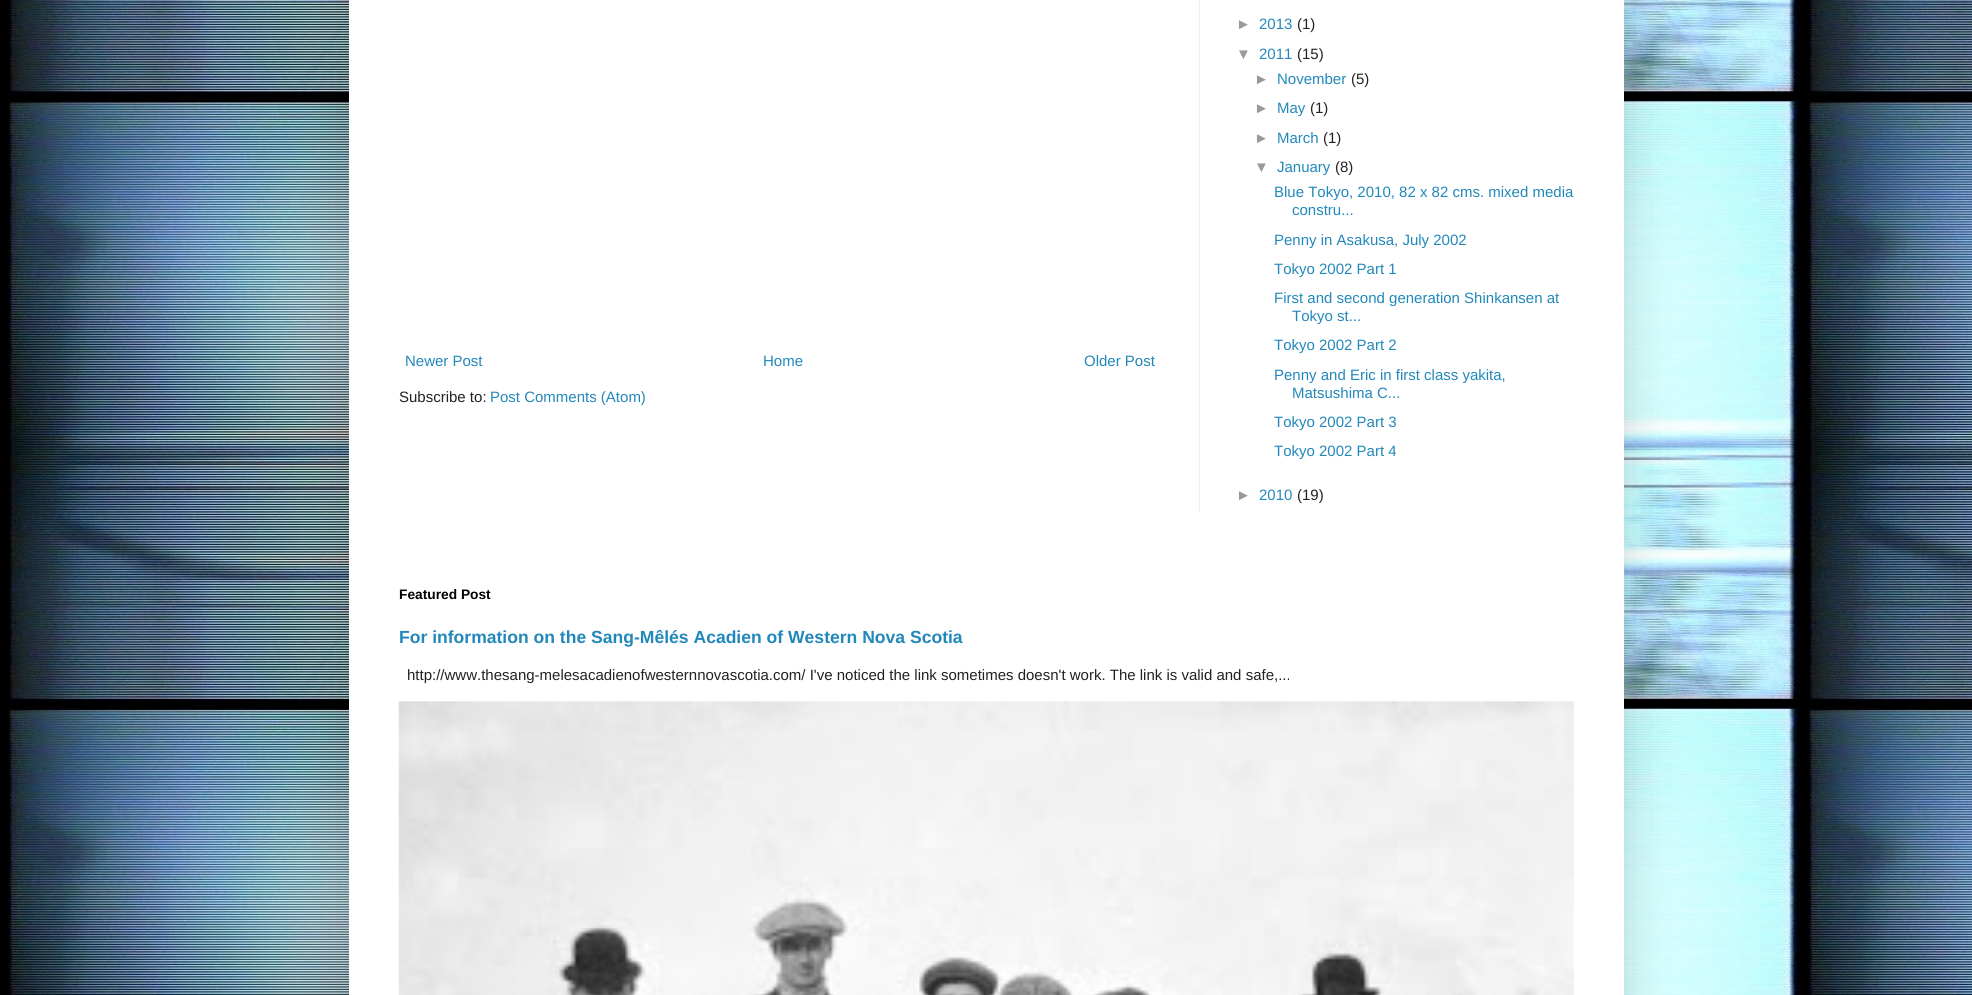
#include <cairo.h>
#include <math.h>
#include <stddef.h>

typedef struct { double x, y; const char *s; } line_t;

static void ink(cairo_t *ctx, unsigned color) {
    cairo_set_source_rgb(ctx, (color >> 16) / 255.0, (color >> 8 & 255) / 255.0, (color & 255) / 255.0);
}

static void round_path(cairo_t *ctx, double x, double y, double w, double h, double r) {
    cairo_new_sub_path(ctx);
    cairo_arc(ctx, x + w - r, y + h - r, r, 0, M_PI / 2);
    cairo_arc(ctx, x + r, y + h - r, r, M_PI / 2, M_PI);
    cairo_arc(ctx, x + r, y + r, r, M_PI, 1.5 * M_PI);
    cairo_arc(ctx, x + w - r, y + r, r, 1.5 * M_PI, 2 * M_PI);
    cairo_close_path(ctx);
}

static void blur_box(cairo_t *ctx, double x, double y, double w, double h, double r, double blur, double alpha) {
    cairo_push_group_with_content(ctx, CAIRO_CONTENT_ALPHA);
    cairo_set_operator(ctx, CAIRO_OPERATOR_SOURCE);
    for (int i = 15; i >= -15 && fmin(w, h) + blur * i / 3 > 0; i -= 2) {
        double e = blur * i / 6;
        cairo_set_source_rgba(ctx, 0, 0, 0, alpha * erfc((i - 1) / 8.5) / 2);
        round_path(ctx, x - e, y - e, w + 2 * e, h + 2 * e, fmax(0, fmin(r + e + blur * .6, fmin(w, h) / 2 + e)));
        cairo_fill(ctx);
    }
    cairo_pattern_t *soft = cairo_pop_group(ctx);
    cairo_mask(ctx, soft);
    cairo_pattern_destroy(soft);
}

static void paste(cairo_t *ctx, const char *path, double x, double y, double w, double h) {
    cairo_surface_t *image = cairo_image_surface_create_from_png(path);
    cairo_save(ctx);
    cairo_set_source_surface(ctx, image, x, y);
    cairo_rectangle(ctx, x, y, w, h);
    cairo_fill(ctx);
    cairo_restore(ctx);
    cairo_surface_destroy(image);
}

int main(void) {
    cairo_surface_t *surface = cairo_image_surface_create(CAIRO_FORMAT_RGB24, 1972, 995);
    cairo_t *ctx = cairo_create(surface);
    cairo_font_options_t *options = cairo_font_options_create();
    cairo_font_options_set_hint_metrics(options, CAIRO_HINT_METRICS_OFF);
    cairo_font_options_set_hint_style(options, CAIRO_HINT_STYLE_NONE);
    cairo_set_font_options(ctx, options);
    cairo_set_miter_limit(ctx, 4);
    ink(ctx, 0xFFFFFF);
    cairo_paint(ctx);
    paste(ctx, "media/1.png", 0, 0, 1972, 995);
    ink(ctx, 0x000000);
    blur_box(ctx, 349, -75, 1275, 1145, 0, 25, 0.15);
    ink(ctx, 0xFFFFFF);
    cairo_rectangle(ctx, 349, 0, 1275, 995);
    cairo_fill(ctx);
    ink(ctx, 0xEEEEEE);
    cairo_rectangle(ctx, 1199, 0, 1, 513);
    cairo_fill(ctx);
    cairo_select_font_face(ctx, "Liberation Sans", CAIRO_FONT_SLANT_NORMAL, CAIRO_FONT_WEIGHT_NORMAL);
    cairo_set_font_size(ctx, 15);
    ink(ctx, 0x2288BB);
    {
        static const line_t items[] = {
            {405, 366, "Newer Post"},
            {763, 366, "Home"},
            {1084, 366, "Older Post"},
        };
        for (size_t i = 0; i < sizeof items / sizeof *items; i++) {
            cairo_move_to(ctx, items[i].x, items[i].y);
            cairo_show_text(ctx, items[i].s);
        }
    }
    ink(ctx, 0x222222);
    cairo_move_to(ctx, 399, 402);
    cairo_show_text(ctx, "Subscribe to:");
    ink(ctx, 0x2288BB);
    cairo_move_to(ctx, 490, 402);
    cairo_show_text(ctx, "Post Comments (Atom)");
    ink(ctx, 0x999999);
    cairo_move_to(ctx, 1236, 29);
    cairo_show_text(ctx, "►");
    ink(ctx, 0x2288BB);
    cairo_move_to(ctx, 1259, 29);
    cairo_show_text(ctx, "2013");
    ink(ctx, 0x222222);
    cairo_move_to(ctx, 1297, 29);
    cairo_show_text(ctx, "(1)");
    ink(ctx, 0x999999);
    cairo_move_to(ctx, 1236, 59);
    cairo_show_text(ctx, "▼");
    ink(ctx, 0x2288BB);
    cairo_move_to(ctx, 1259, 59);
    cairo_show_text(ctx, "2011");
    ink(ctx, 0x222222);
    cairo_move_to(ctx, 1297, 59);
    cairo_show_text(ctx, "(15)");
    ink(ctx, 0x999999);
    cairo_move_to(ctx, 1254, 84);
    cairo_show_text(ctx, "►");
    ink(ctx, 0x2288BB);
    cairo_move_to(ctx, 1277, 84);
    cairo_show_text(ctx, "November");
    ink(ctx, 0x222222);
    cairo_move_to(ctx, 1351, 84);
    cairo_show_text(ctx, "(5)");
    ink(ctx, 0x999999);
    cairo_move_to(ctx, 1254, 113);
    cairo_show_text(ctx, "►");
    ink(ctx, 0x2288BB);
    cairo_move_to(ctx, 1277, 113);
    cairo_show_text(ctx, "May");
    ink(ctx, 0x222222);
    cairo_move_to(ctx, 1310, 113);
    cairo_show_text(ctx, "(1)");
    ink(ctx, 0x999999);
    cairo_move_to(ctx, 1254, 143);
    cairo_show_text(ctx, "►");
    ink(ctx, 0x2288BB);
    cairo_move_to(ctx, 1277, 143);
    cairo_show_text(ctx, "March");
    ink(ctx, 0x222222);
    cairo_move_to(ctx, 1323, 143);
    cairo_show_text(ctx, "(1)");
    ink(ctx, 0x999999);
    cairo_move_to(ctx, 1254, 172);
    cairo_show_text(ctx, "▼");
    ink(ctx, 0x2288BB);
    cairo_move_to(ctx, 1277, 172);
    cairo_show_text(ctx, "January");
    ink(ctx, 0x222222);
    cairo_move_to(ctx, 1335, 172);
    cairo_show_text(ctx, "(8)");
    ink(ctx, 0x2288BB);
    {
        static const line_t items[] = {
            {1274, 197, "Blue Tokyo, 2010, 82 x 82 cms. mixed media"},
            {1292, 215, "constru..."},
            {1274, 245, "Penny in Asakusa, July 2002"},
            {1274, 274, "Tokyo 2002 Part 1"},
            {1274, 303, "First and second generation Shinkansen at"},
            {1292, 321, "Tokyo st..."},
            {1274, 350, "Tokyo 2002 Part 2"},
            {1274, 380, "Penny and Eric in first class yakita,"},
            {1292, 398, "Matsushima C..."},
            {1274, 427, "Tokyo 2002 Part 3"},
            {1274, 456, "Tokyo 2002 Part 4"},
        };
        for (size_t i = 0; i < sizeof items / sizeof *items; i++) {
            cairo_move_to(ctx, items[i].x, items[i].y);
            cairo_show_text(ctx, items[i].s);
        }
    }
    ink(ctx, 0x999999);
    cairo_move_to(ctx, 1236, 500);
    cairo_show_text(ctx, "►");
    ink(ctx, 0x2288BB);
    cairo_move_to(ctx, 1259, 500);
    cairo_show_text(ctx, "2010");
    ink(ctx, 0x222222);
    cairo_move_to(ctx, 1297, 500);
    cairo_show_text(ctx, "(19)");
    cairo_select_font_face(ctx, "Liberation Sans", CAIRO_FONT_SLANT_NORMAL, CAIRO_FONT_WEIGHT_BOLD);
    cairo_set_font_size(ctx, 13.75);
    ink(ctx, 0x000000);
    cairo_move_to(ctx, 399, 599);
    cairo_show_text(ctx, "Featured Post");
    cairo_set_font_size(ctx, 17.55);
    ink(ctx, 0x2288BB);
    cairo_move_to(ctx, 399, 643);
    cairo_show_text(ctx, "For information on the Sang-Mêlés Acadien of Western Nova Scotia");
    cairo_select_font_face(ctx, "Liberation Sans", CAIRO_FONT_SLANT_NORMAL, CAIRO_FONT_WEIGHT_NORMAL);
    cairo_set_font_size(ctx, 15);
    ink(ctx, 0x222222);
    cairo_move_to(ctx, 407, 680);
    cairo_show_text(ctx, "http://www.thesang-melesacadienofwesternnovascotia.com/ I've noticed the link sometimes doesn't work. The link is valid and safe,...");
    paste(ctx, "media/2.png", 398, 701, 1176, 294);
    cairo_surface_write_to_png(surface, "image.png");
    cairo_font_options_destroy(options);
    cairo_destroy(ctx);
    cairo_surface_destroy(surface);
    return 0;
}
